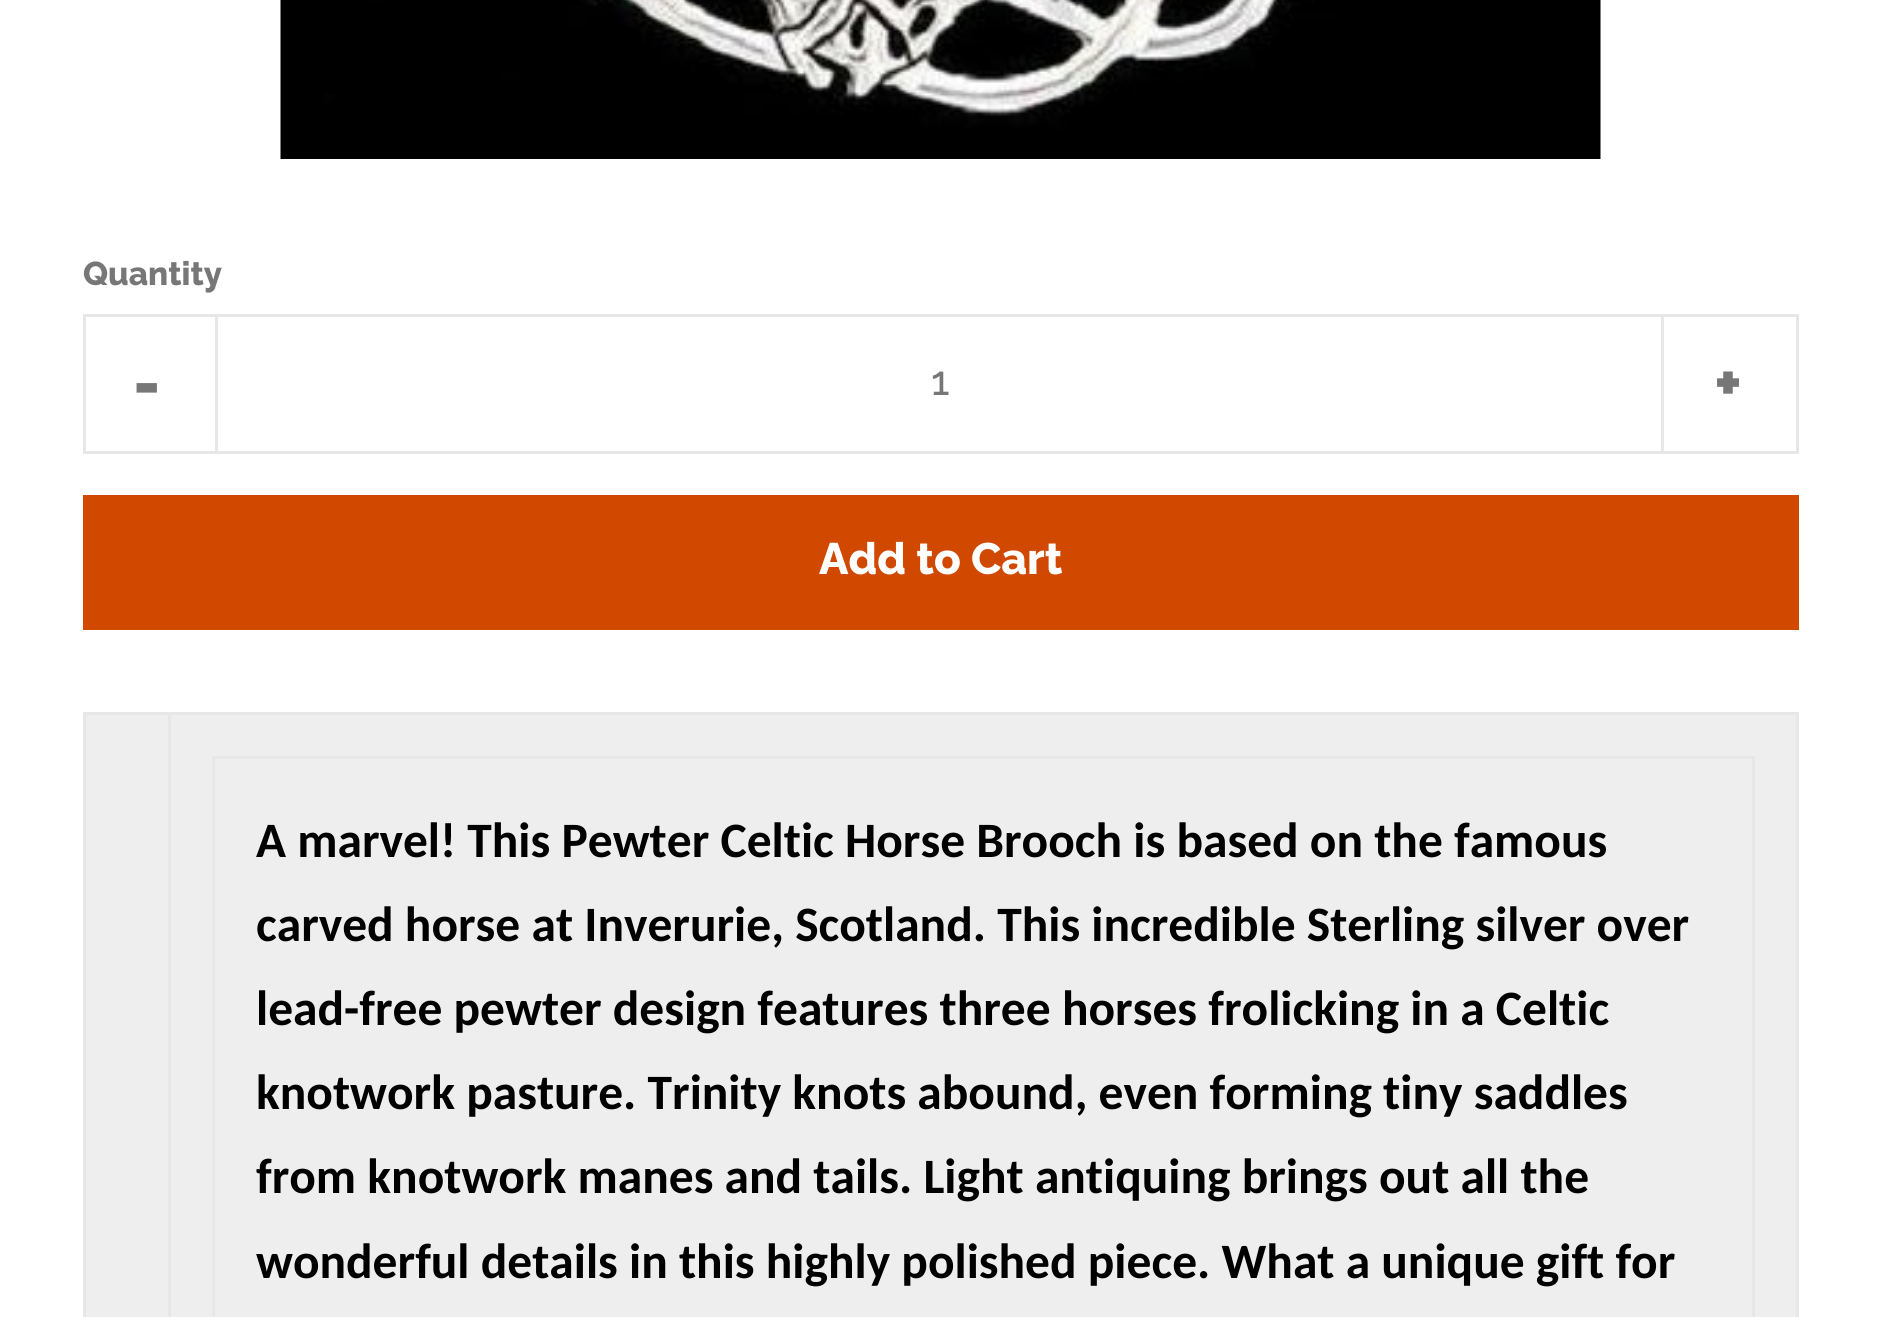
#include <cairo.h>
#include <math.h>
#include <stddef.h>

typedef struct { double x, y; const char *s; } line_t;
typedef struct { double x, y, w, h; unsigned color; } box_t;

static void ink(cairo_t *ctx, unsigned color) {
    cairo_set_source_rgb(ctx, (color >> 16) / 255.0, (color >> 8 & 255) / 255.0, (color & 255) / 255.0);
}

static void paste(cairo_t *ctx, const char *path, double x, double y, double w, double h) {
    cairo_surface_t *image = cairo_image_surface_create_from_png(path);
    cairo_save(ctx);
    cairo_set_source_surface(ctx, image, x, y);
    cairo_rectangle(ctx, x, y, w, h);
    cairo_fill(ctx);
    cairo_restore(ctx);
    cairo_surface_destroy(image);
}

int main(void) {
    cairo_surface_t *surface = cairo_image_surface_create(CAIRO_FORMAT_RGB24, 1879, 1317);
    cairo_t *ctx = cairo_create(surface);
    cairo_font_options_t *options = cairo_font_options_create();
    cairo_font_options_set_hint_metrics(options, CAIRO_HINT_METRICS_OFF);
    cairo_font_options_set_hint_style(options, CAIRO_HINT_STYLE_NONE);
    cairo_set_font_options(ctx, options);
    cairo_set_miter_limit(ctx, 4);
    ink(ctx, 0xFFFFFF);
    cairo_paint(ctx);
    paste(ctx, "media/1.png", 280, 0, 1321, 159);
    cairo_select_font_face(ctx, "Raleway ExtraBold", CAIRO_FONT_SLANT_NORMAL, CAIRO_FONT_WEIGHT_NORMAL);
    cairo_set_font_size(ctx, 33);
    ink(ctx, 0x777777);
    cairo_move_to(ctx, 83, 285);
    cairo_show_text(ctx, "Quantity");
    cairo_rectangle(ctx, 84.5, 315.5, 1713, 137);
    ink(ctx, 0xE7E7E7);
    cairo_set_line_width(ctx, 3);
    cairo_stroke(ctx);
    cairo_rectangle(ctx, 215, 314, 3, 140);
    cairo_fill(ctx);
    cairo_set_font_size(ctx, 66);
    ink(ctx, 0x777777);
    cairo_move_to(ctx, 133, 406);
    cairo_show_text(ctx, "-");
    cairo_select_font_face(ctx, "Raleway Medium", CAIRO_FONT_SLANT_NORMAL, CAIRO_FONT_WEIGHT_NORMAL);
    cairo_set_font_size(ctx, 41);
    cairo_move_to(ctx, 931, 395);
    cairo_show_text(ctx, "1");
    ink(ctx, 0xE7E7E7);
    cairo_rectangle(ctx, 1661, 314, 3, 140);
    cairo_fill(ctx);
    cairo_select_font_face(ctx, "Raleway ExtraBold", CAIRO_FONT_SLANT_NORMAL, CAIRO_FONT_WEIGHT_NORMAL);
    cairo_set_font_size(ctx, 66);
    ink(ctx, 0x777777);
    cairo_move_to(ctx, 1714, 406);
    cairo_show_text(ctx, "+");
    ink(ctx, 0xD14800);
    cairo_rectangle(ctx, 83, 495, 1716, 135);
    cairo_fill(ctx);
    cairo_set_font_size(ctx, 44);
    ink(ctx, 0xFFFFFF);
    cairo_move_to(ctx, 819, 574);
    cairo_show_text(ctx, "Add to Cart");
    {
        static const box_t items[] = {
            {86, 715, 1710, 602, 0xEEEEEE},
            {83, 712, 1716, 3, 0xE7E7E7},
            {1796, 712, 3, 605, 0xE7E7E7},
            {83, 712, 3, 605, 0xE7E7E7},
            {168, 712, 3, 605, 0xE7E7E7},
            {212, 756, 1543, 3, 0xE7E7E7},
            {1752, 756, 3, 561, 0xE7E7E7},
            {212, 756, 3, 561, 0xE7E7E7},
        };
        for (size_t i = 0; i < sizeof items / sizeof *items; i++) {
            ink(ctx, items[i].color);
            cairo_rectangle(ctx, items[i].x, items[i].y, items[i].w, items[i].h);
            cairo_fill(ctx);
        }
    }
    cairo_select_font_face(ctx, "Carlito", CAIRO_FONT_SLANT_NORMAL, CAIRO_FONT_WEIGHT_BOLD);
    cairo_set_font_size(ctx, 49.5);
    ink(ctx, 0x000000);
    {
        static const line_t items[] = {
            {256, 857, "A marvel! This Pewter Celtic Horse Brooch is based on the famous"},
            {256, 941, "carved horse at Inverurie, Scotland. This incredible Sterling silver over"},
            {256, 1025, "lead-free pewter design features three horses frolicking in a Celtic"},
            {256, 1109, "knotwork pasture. Trinity knots abound, even forming tiny saddles"},
            {256, 1193, "from knotwork manes and tails. Light antiquing brings out all the"},
            {256, 1278, "wonderful details in this highly polished piece. What a unique gift for"},
        };
        for (size_t i = 0; i < sizeof items / sizeof *items; i++) {
            cairo_move_to(ctx, items[i].x, items[i].y);
            cairo_show_text(ctx, items[i].s);
        }
    }
    cairo_surface_write_to_png(surface, "image.png");
    cairo_font_options_destroy(options);
    cairo_destroy(ctx);
    cairo_surface_destroy(surface);
    return 0;
}
